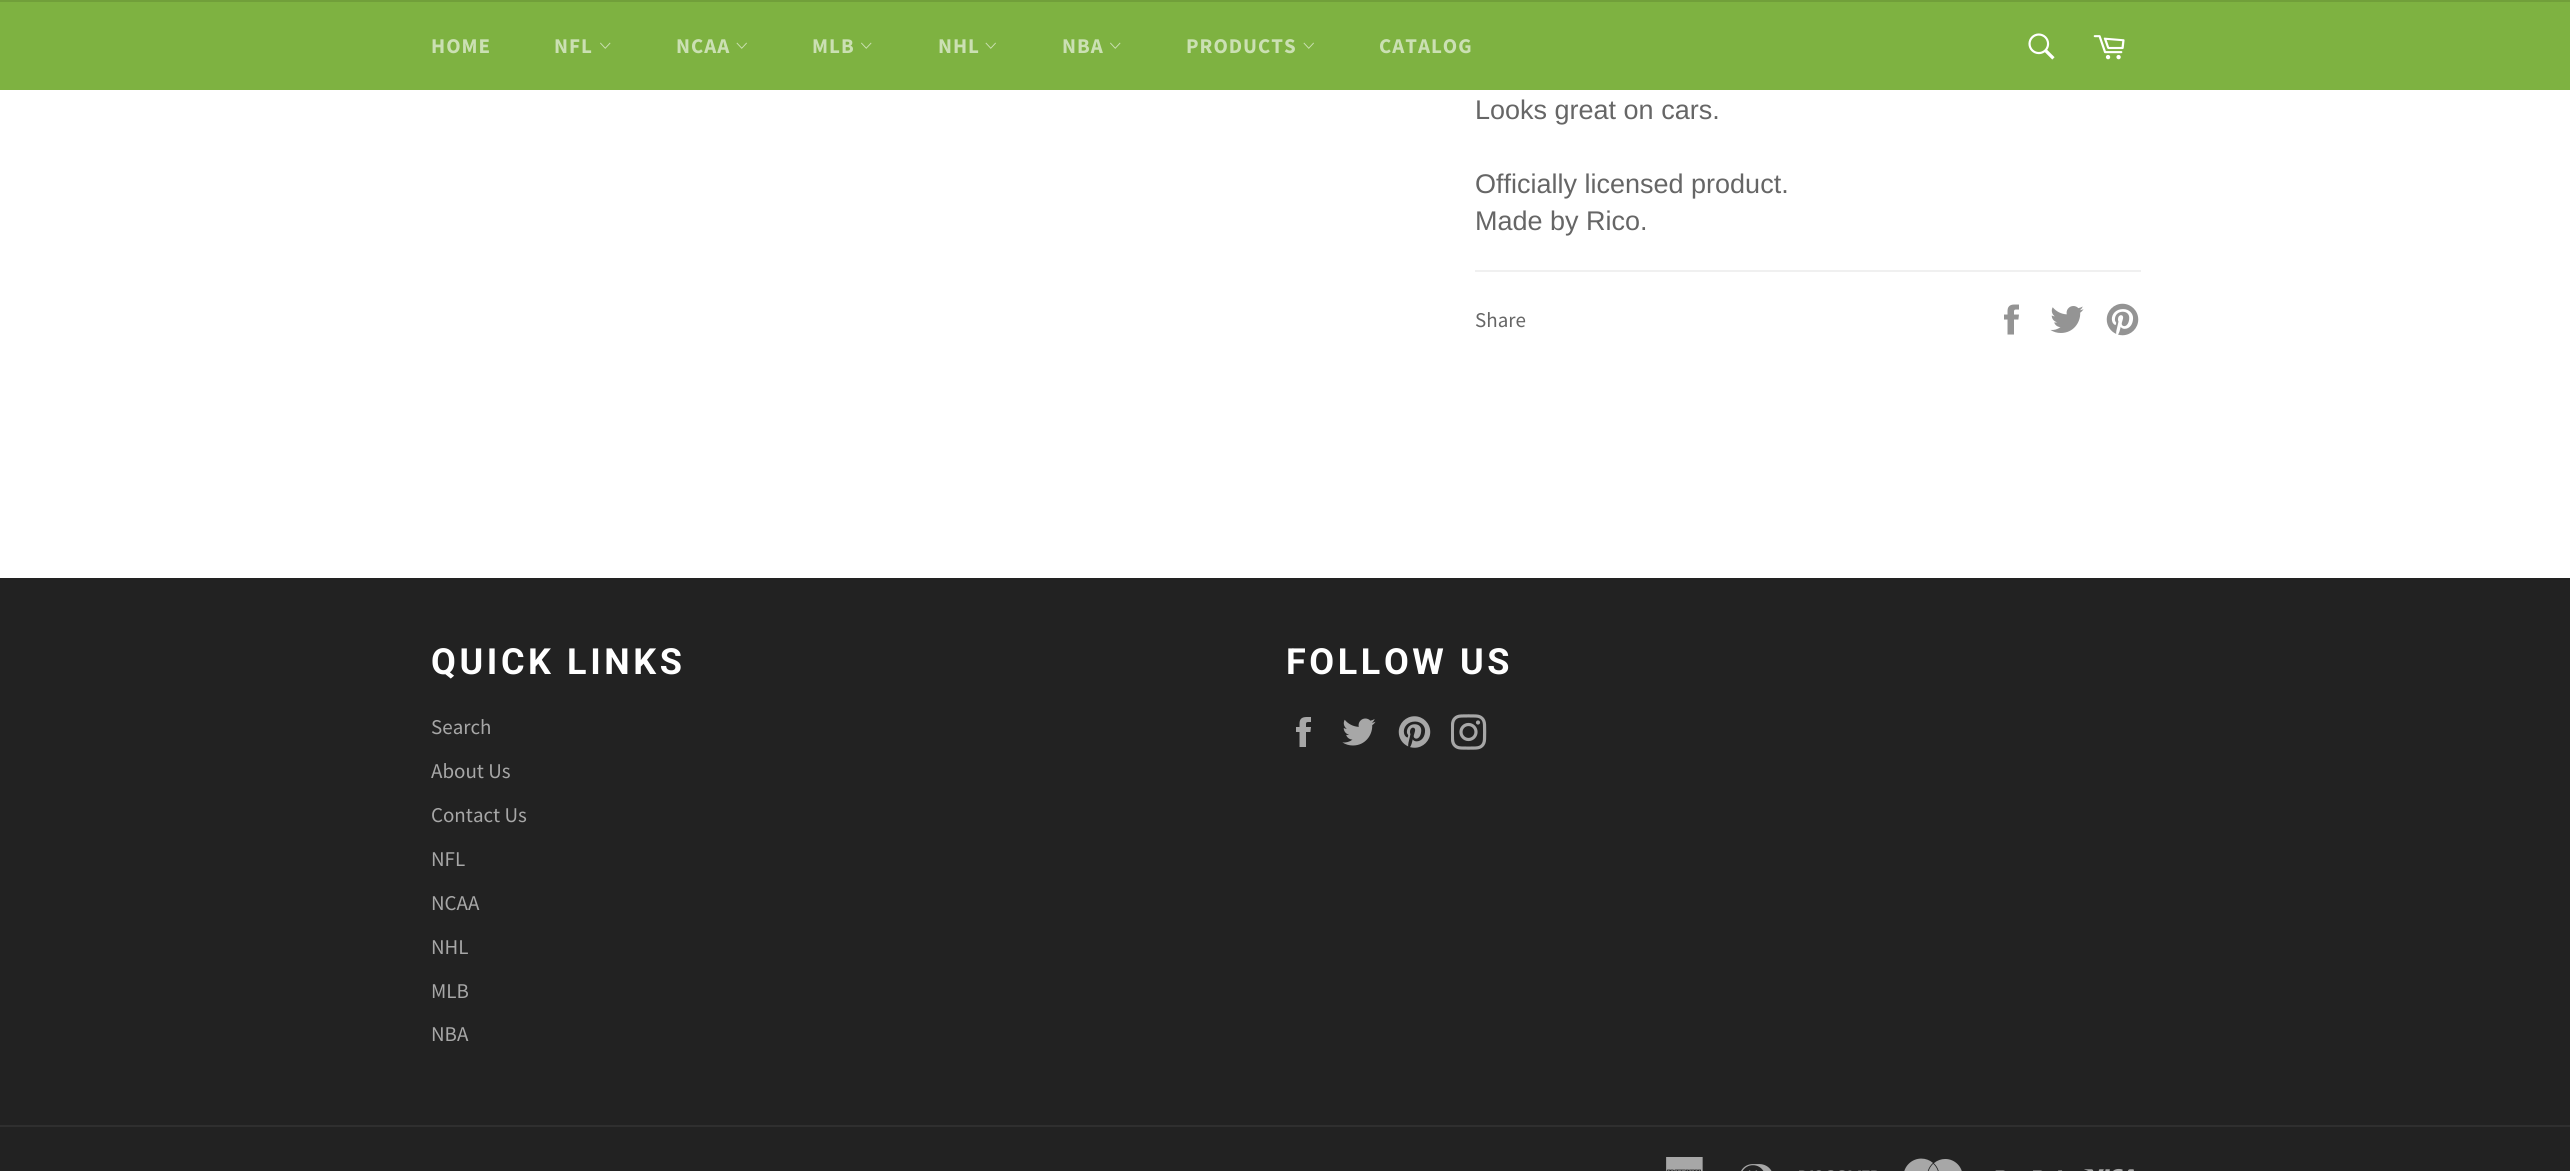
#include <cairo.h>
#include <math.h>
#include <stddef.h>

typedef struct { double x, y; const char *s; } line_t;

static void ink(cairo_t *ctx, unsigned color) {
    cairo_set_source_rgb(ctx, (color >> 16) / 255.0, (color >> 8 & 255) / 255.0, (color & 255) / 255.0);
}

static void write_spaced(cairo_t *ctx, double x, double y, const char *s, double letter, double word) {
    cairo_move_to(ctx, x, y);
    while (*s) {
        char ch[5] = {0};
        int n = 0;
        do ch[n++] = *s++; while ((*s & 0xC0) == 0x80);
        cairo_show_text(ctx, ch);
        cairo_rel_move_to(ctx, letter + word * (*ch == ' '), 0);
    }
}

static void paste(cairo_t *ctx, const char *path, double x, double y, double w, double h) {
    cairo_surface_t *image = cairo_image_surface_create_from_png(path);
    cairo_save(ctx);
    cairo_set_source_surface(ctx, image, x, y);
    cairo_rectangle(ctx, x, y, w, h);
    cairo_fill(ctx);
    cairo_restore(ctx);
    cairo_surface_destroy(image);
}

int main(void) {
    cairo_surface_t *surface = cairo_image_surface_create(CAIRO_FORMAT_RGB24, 2570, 1171);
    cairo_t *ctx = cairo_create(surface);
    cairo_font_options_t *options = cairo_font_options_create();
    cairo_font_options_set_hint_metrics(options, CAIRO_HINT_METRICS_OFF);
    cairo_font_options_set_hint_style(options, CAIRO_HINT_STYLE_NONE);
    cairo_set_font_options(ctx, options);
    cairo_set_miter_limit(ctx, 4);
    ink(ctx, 0xFFFFFF);
    cairo_paint(ctx);
    ink(ctx, 0x7EB241);
    cairo_rectangle(ctx, 0, 2, 2570, 88);
    cairo_fill(ctx);
    ink(ctx, 0x719F3A);
    cairo_rectangle(ctx, 0, 0, 2570, 2);
    cairo_fill(ctx);
    cairo_select_font_face(ctx, "Source Sans Pro", CAIRO_FONT_SLANT_NORMAL, CAIRO_FONT_WEIGHT_BOLD);
    cairo_set_font_size(ctx, 21);
    ink(ctx, 0xCBE0B3);
    write_spaced(ctx, 431, 53, "HOME", 1, 0);
    write_spaced(ctx, 554, 53, "NFL", 1, 0);
    paste(ctx, "media/1.png", 600, 42, 11, 7);
    write_spaced(ctx, 676, 53, "NCAA", 1, 0);
    paste(ctx, "media/2.png", 736, 42, 11, 7);
    write_spaced(ctx, 812, 53, "MLB", 1, 0);
    paste(ctx, "media/1.png", 861, 42, 11, 7);
    write_spaced(ctx, 938, 53, "NHL", 1, 0);
    paste(ctx, "media/2.png", 985, 42, 11, 7);
    write_spaced(ctx, 1062, 53, "NBA", 1, 0);
    paste(ctx, "media/1.png", 1110, 42, 11, 7);
    write_spaced(ctx, 1186, 53, "PRODUCTS", 1, 0);
    paste(ctx, "media/2.png", 1303, 42, 11, 7);
    write_spaced(ctx, 1379, 53, "CATALOG", 1, 0);
    paste(ctx, "media/3.png", 2028, 33, 27, 27);
    paste(ctx, "media/4.png", 2093, 35, 32, 25);
    cairo_select_font_face(ctx, "Liberation Sans", CAIRO_FONT_SLANT_NORMAL, CAIRO_FONT_WEIGHT_NORMAL);
    cairo_set_font_size(ctx, 27);
    ink(ctx, 0x666666);
    {
        static const line_t items[] = {
            {1475, 119, "Looks great on cars."},
            {1475, 193, "Officially licensed product."},
            {1475, 230, "Made by Rico."},
        };
        for (size_t i = 0; i < sizeof items / sizeof *items; i++) {
            cairo_move_to(ctx, items[i].x, items[i].y);
            cairo_show_text(ctx, items[i].s);
        }
    }
    ink(ctx, 0xF0F0F0);
    cairo_rectangle(ctx, 1475, 270, 666, 2);
    cairo_fill(ctx);
    cairo_select_font_face(ctx, "Source Sans Pro", CAIRO_FONT_SLANT_NORMAL, CAIRO_FONT_WEIGHT_NORMAL);
    cairo_set_font_size(ctx, 21);
    ink(ctx, 0x666666);
    cairo_move_to(ctx, 1475, 327);
    cairo_show_text(ctx, "Share");
    paste(ctx, "media/5.png", 2004, 304, 15, 31);
    paste(ctx, "media/6.png", 2050, 306, 34, 27);
    paste(ctx, "media/7.png", 2106, 303, 33, 33);
    ink(ctx, 0x222222);
    cairo_rectangle(ctx, 0, 578, 2570, 593);
    cairo_fill(ctx);
    cairo_select_font_face(ctx, "Roboto", CAIRO_FONT_SLANT_NORMAL, CAIRO_FONT_WEIGHT_BOLD);
    cairo_set_font_size(ctx, 36);
    ink(ctx, 0xFFFFFF);
    write_spaced(ctx, 431, 674, "QUICK LINKS", 3.6, 0);
    cairo_select_font_face(ctx, "Source Sans Pro", CAIRO_FONT_SLANT_NORMAL, CAIRO_FONT_WEIGHT_NORMAL);
    cairo_set_font_size(ctx, 21);
    ink(ctx, 0xA7A7A7);
    {
        static const line_t items[] = {
            {431, 734, "Search"},
            {431, 778, "About Us"},
            {431, 822, "Contact Us"},
            {431, 866, "NFL"},
            {431, 910, "NCAA"},
            {431, 954, "NHL"},
            {431, 998, "MLB"},
            {431, 1041, "NBA"},
        };
        for (size_t i = 0; i < sizeof items / sizeof *items; i++) {
            cairo_move_to(ctx, items[i].x, items[i].y);
            cairo_show_text(ctx, items[i].s);
        }
    }
    cairo_select_font_face(ctx, "Roboto", CAIRO_FONT_SLANT_NORMAL, CAIRO_FONT_WEIGHT_BOLD);
    cairo_set_font_size(ctx, 36);
    ink(ctx, 0xFFFFFF);
    write_spaced(ctx, 1286, 674, "FOLLOW US", 3.6, 0);
    paste(ctx, "media/8.png", 1296, 717, 15, 30);
    paste(ctx, "media/9.png", 1342, 718, 34, 28);
    paste(ctx, "media/10.png", 1398, 716, 33, 32);
    paste(ctx, "media/11.png", 1451, 714, 36, 36);
    ink(ctx, 0x2F2F2F);
    cairo_rectangle(ctx, 0, 1125, 2570, 2);
    cairo_fill(ctx);
    paste(ctx, "media/12.png", 1666, 1157, 37, 14);
    paste(ctx, "media/13.png", 1741, 1164, 31, 7);
    paste(ctx, "media/14.png", 1799, 1170, 78, 1);
    paste(ctx, "media/15.png", 1904, 1158, 58, 13);
    paste(ctx, "media/16.png", 1995, 1170, 68, 1);
    paste(ctx, "media/17.png", 2084, 1168, 50, 3);
    cairo_surface_write_to_png(surface, "image.png");
    cairo_font_options_destroy(options);
    cairo_destroy(ctx);
    cairo_surface_destroy(surface);
    return 0;
}
